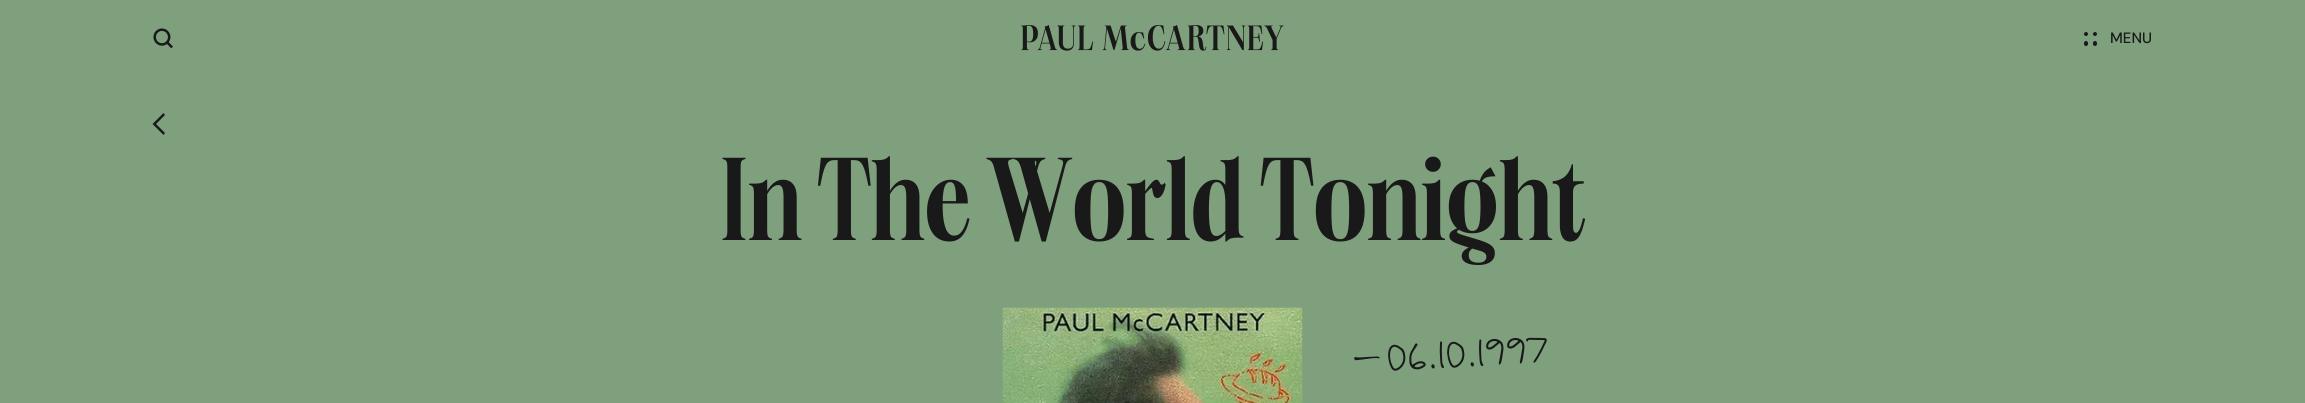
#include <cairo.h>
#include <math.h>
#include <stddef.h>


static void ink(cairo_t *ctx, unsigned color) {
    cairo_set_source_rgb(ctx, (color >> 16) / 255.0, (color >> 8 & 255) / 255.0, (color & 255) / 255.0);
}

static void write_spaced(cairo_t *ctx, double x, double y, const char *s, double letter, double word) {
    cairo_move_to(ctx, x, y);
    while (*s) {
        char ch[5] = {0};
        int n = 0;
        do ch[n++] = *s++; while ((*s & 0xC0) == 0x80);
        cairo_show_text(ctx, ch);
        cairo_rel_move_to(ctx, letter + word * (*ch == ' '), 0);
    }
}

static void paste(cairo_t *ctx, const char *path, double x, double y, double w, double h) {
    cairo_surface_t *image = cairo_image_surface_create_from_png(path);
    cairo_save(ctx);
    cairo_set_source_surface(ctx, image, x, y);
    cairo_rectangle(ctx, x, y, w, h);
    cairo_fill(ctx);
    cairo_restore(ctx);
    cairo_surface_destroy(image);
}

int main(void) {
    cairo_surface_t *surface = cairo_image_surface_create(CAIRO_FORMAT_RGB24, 2305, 403);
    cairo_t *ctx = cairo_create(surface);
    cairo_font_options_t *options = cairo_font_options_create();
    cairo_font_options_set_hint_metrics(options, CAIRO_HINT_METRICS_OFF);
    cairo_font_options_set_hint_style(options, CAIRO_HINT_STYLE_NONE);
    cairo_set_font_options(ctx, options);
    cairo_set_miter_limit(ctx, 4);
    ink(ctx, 0x7FA07D);
    cairo_paint(ctx);
    paste(ctx, "media/1.png", 153, 28, 20, 21);
    paste(ctx, "media/2.png", 1021, 25, 263, 26);
    paste(ctx, "media/3.png", 2084, 32, 13, 14);
    cairo_select_font_face(ctx, "DM Sans Medium", CAIRO_FONT_SLANT_NORMAL, CAIRO_FONT_WEIGHT_NORMAL);
    cairo_set_font_size(ctx, 15);
    ink(ctx, 0x191919);
    cairo_move_to(ctx, 2110, 43);
    cairo_show_text(ctx, "MENU");
    cairo_new_path(ctx);
    cairo_move_to(ctx, 163.5, 135);
    cairo_line_to(ctx, 152.5, 124);
    cairo_line_to(ctx, 163.5, 113);
    cairo_line_to(ctx, 165, 115);
    cairo_line_to(ctx, 156, 124);
    cairo_line_to(ctx, 165, 133);
    cairo_close_path(ctx);
    cairo_fill(ctx);
    cairo_select_font_face(ctx, "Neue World", CAIRO_FONT_SLANT_NORMAL, CAIRO_FONT_WEIGHT_NORMAL);
    cairo_set_font_size(ctx, 117.5);
    write_spaced(ctx, 719, 240, "In The World Tonight", -2.35, 0);
    paste(ctx, "media/4.png", 1002, 307, 301, 96);
    cairo_select_font_face(ctx, "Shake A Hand", CAIRO_FONT_SLANT_NORMAL, CAIRO_FONT_WEIGHT_NORMAL);
    cairo_set_font_size(ctx, 37.5);
    cairo_save(ctx);
    cairo_translate(ctx, 1353, 373);
    cairo_rotate(ctx, -3 * M_PI / 180);
    cairo_move_to(ctx, 0, 0);
    cairo_show_text(ctx, "-");
    cairo_restore(ctx);
    cairo_save(ctx);
    cairo_translate(ctx, 1387, 371);
    cairo_rotate(ctx, -3 * M_PI / 180);
    cairo_move_to(ctx, 0, 0);
    cairo_show_text(ctx, "06.10.1997");
    cairo_restore(ctx);
    cairo_surface_write_to_png(surface, "image.png");
    cairo_font_options_destroy(options);
    cairo_destroy(ctx);
    cairo_surface_destroy(surface);
    return 0;
}
